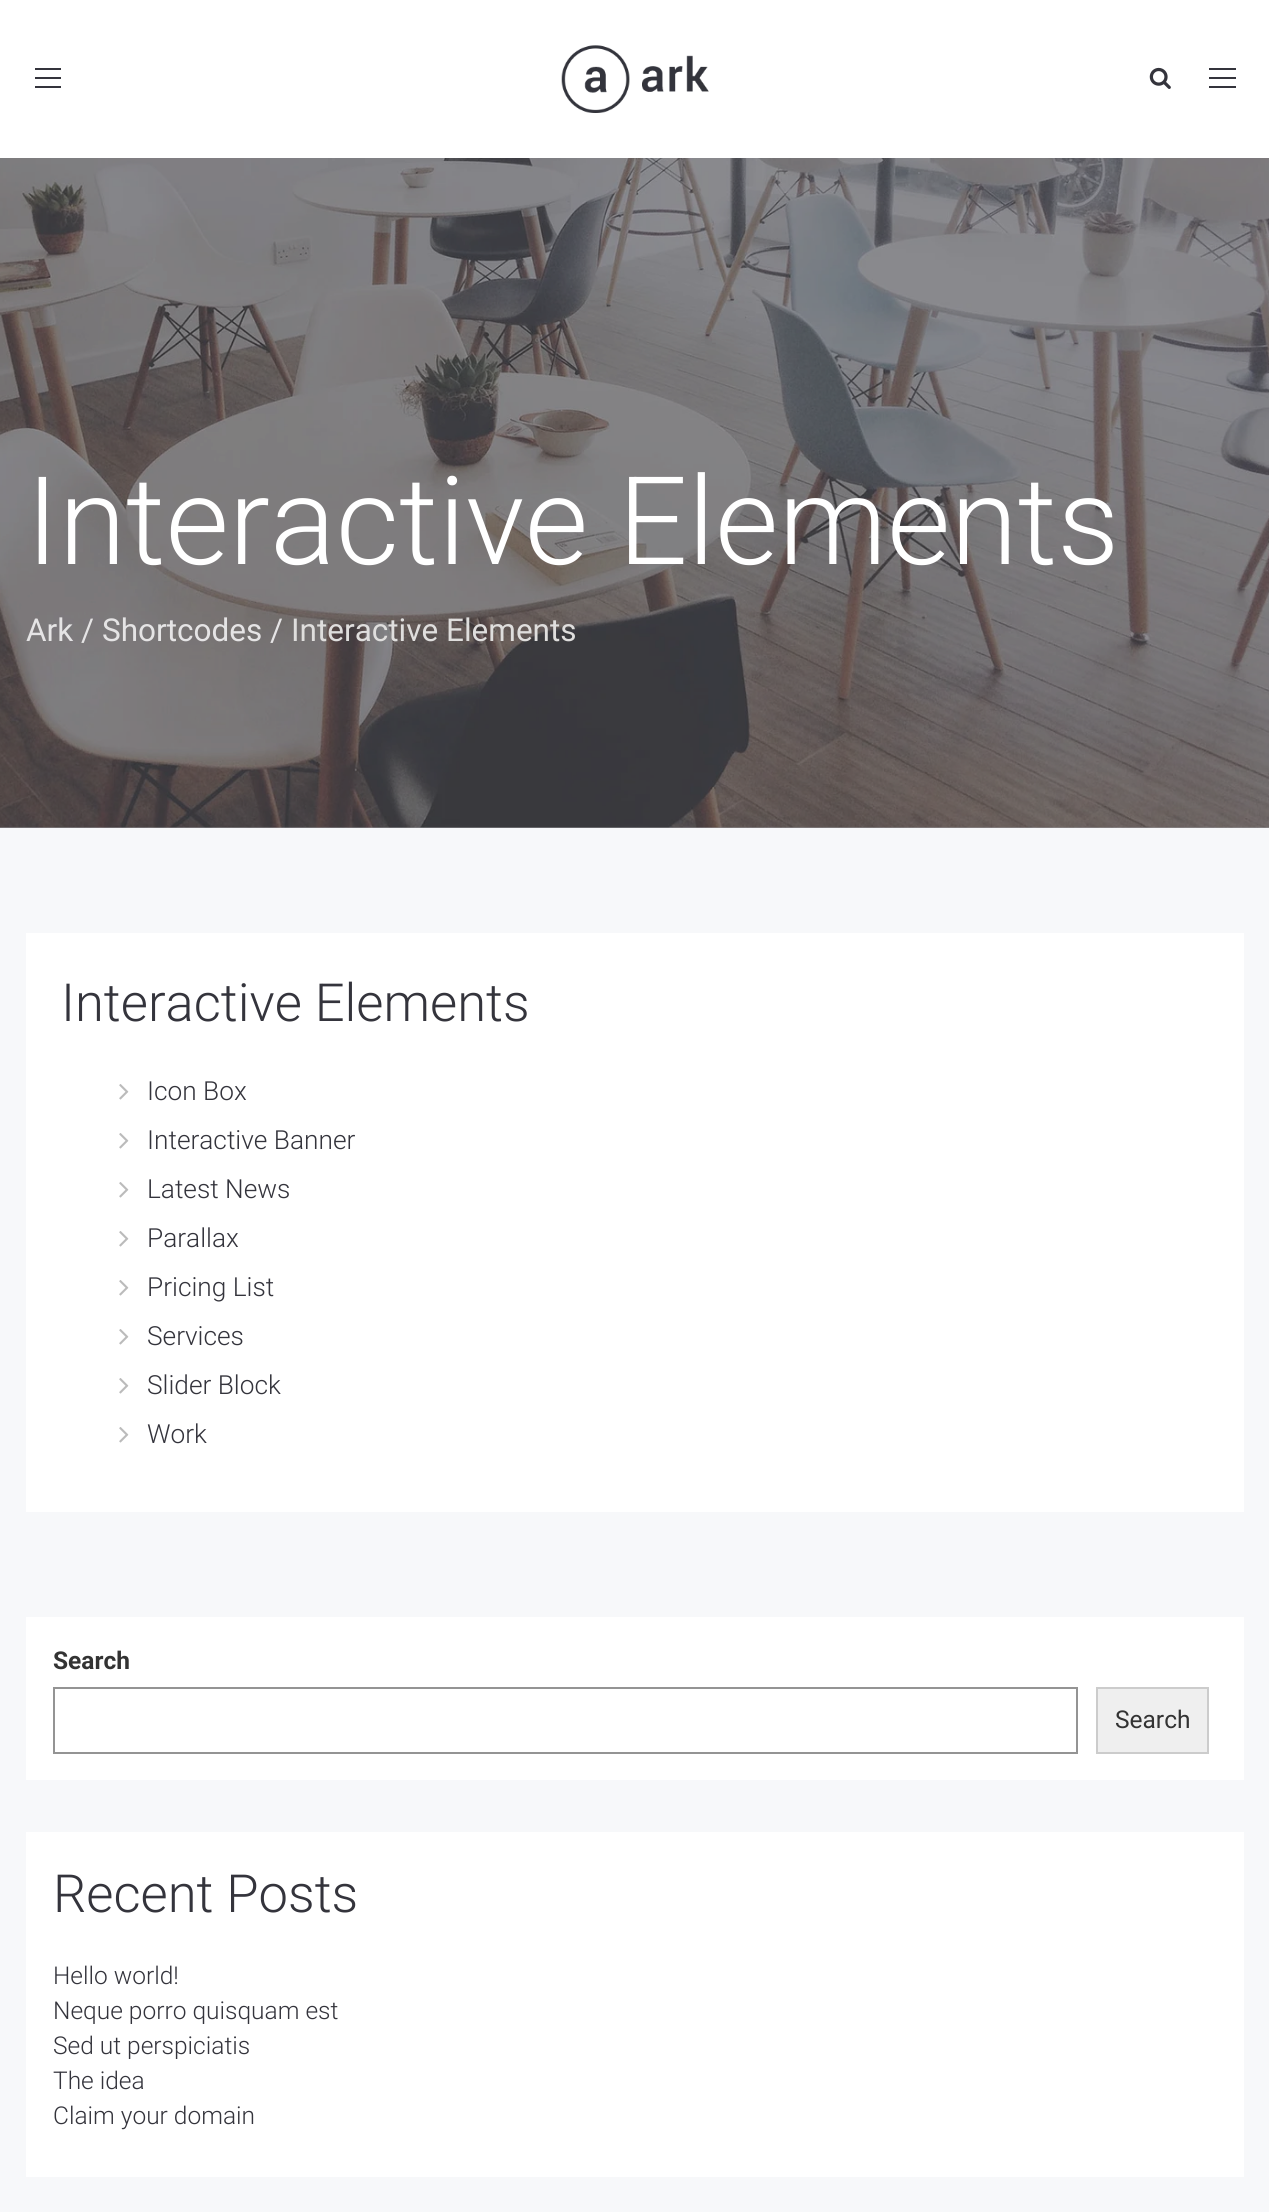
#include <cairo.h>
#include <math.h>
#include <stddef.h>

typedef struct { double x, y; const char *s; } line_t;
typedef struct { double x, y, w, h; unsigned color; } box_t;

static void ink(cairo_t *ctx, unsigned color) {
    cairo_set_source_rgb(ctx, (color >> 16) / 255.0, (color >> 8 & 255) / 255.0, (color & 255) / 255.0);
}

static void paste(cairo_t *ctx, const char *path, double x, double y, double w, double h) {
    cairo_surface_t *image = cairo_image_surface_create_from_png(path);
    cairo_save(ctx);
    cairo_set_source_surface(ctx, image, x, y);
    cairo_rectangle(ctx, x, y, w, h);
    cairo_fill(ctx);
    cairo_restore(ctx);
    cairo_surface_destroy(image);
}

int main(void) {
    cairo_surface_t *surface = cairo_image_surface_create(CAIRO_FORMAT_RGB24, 1269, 2212);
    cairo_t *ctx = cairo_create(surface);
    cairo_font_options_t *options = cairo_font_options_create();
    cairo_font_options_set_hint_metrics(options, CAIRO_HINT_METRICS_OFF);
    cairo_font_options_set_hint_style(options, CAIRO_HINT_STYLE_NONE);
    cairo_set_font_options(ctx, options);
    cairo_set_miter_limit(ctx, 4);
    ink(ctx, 0x9A9A9E);
    cairo_paint(ctx);
    {
        static const box_t items[] = {
            {0, 0, 1269, 158, 0xFFFFFF},
            {35, 86, 26, 2, 0x34343C},
            {35, 68, 26, 2, 0x34343C},
            {35, 77, 26, 2, 0x34343C},
        };
        for (size_t i = 0; i < sizeof items / sizeof *items; i++) {
            ink(ctx, items[i].color);
            cairo_rectangle(ctx, items[i].x, items[i].y, items[i].w, items[i].h);
            cairo_fill(ctx);
        }
    }
    paste(ctx, "media/1.png", 561, 45, 148, 68);
    paste(ctx, "media/2.png", 1149, 67, 22, 22);
    {
        static const box_t items[] = {
            {1209, 86, 27, 2, 0x34343C},
            {1209, 68, 27, 2, 0x34343C},
            {1209, 77, 27, 2, 0x34343C},
        };
        for (size_t i = 0; i < sizeof items / sizeof *items; i++) {
            ink(ctx, items[i].color);
            cairo_rectangle(ctx, items[i].x, items[i].y, items[i].w, items[i].h);
            cairo_fill(ctx);
        }
    }
    paste(ctx, "media/3.png", 0, 158, 1269, 670);
    cairo_select_font_face(ctx, "Roboto Light", CAIRO_FONT_SLANT_NORMAL, CAIRO_FONT_WEIGHT_NORMAL);
    cairo_set_font_size(ctx, 122.5);
    ink(ctx, 0xFFFFFF);
    cairo_move_to(ctx, 26, 564);
    cairo_show_text(ctx, "Interactive Elements");
    cairo_select_font_face(ctx, "Roboto", CAIRO_FONT_SLANT_NORMAL, CAIRO_FONT_WEIGHT_NORMAL);
    cairo_set_font_size(ctx, 31.5);
    ink(ctx, 0xE5E4E5);
    {
        static const line_t items[] = {
            {26, 641, "Ark /"},
            {102, 641, "Shortcodes"},
            {270, 641, "/"},
        };
        for (size_t i = 0; i < sizeof items / sizeof *items; i++) {
            cairo_move_to(ctx, items[i].x, items[i].y);
            cairo_show_text(ctx, items[i].s);
        }
    }
    ink(ctx, 0xDFDEDD);
    cairo_move_to(ctx, 291, 641);
    cairo_show_text(ctx, "Interactive Elements");
    ink(ctx, 0xF7F8FA);
    cairo_rectangle(ctx, 0, 828, 1269, 1384);
    cairo_fill(ctx);
    ink(ctx, 0xFFFFFF);
    cairo_rectangle(ctx, 26, 933, 1218, 579);
    cairo_fill(ctx);
    cairo_select_font_face(ctx, "Roboto Light", CAIRO_FONT_SLANT_NORMAL, CAIRO_FONT_WEIGHT_NORMAL);
    cairo_set_font_size(ctx, 52.5);
    ink(ctx, 0x34343C);
    cairo_move_to(ctx, 61, 1021);
    cairo_show_text(ctx, "Interactive Elements");
    paste(ctx, "media/4.png", 119, 1084, 10, 16);
    cairo_set_font_size(ctx, 26.25);
    cairo_move_to(ctx, 147, 1100);
    cairo_show_text(ctx, "Icon Box");
    paste(ctx, "media/4.png", 119, 1133, 10, 16);
    cairo_move_to(ctx, 147, 1149);
    cairo_show_text(ctx, "Interactive Banner");
    paste(ctx, "media/4.png", 119, 1182, 10, 16);
    cairo_move_to(ctx, 147, 1198);
    cairo_show_text(ctx, "Latest News");
    paste(ctx, "media/4.png", 119, 1231, 10, 16);
    cairo_move_to(ctx, 147, 1247);
    cairo_show_text(ctx, "Parallax");
    paste(ctx, "media/4.png", 119, 1280, 10, 16);
    cairo_move_to(ctx, 147, 1296);
    cairo_show_text(ctx, "Pricing List");
    paste(ctx, "media/4.png", 119, 1329, 10, 16);
    cairo_move_to(ctx, 147, 1345);
    cairo_show_text(ctx, "Services");
    paste(ctx, "media/4.png", 119, 1378, 10, 16);
    cairo_move_to(ctx, 147, 1394);
    cairo_show_text(ctx, "Slider Block");
    paste(ctx, "media/4.png", 119, 1427, 10, 16);
    cairo_move_to(ctx, 147, 1443);
    cairo_show_text(ctx, "Work");
    ink(ctx, 0xFFFFFF);
    cairo_rectangle(ctx, 26, 1617, 1218, 163);
    cairo_fill(ctx);
    cairo_select_font_face(ctx, "Roboto", CAIRO_FONT_SLANT_NORMAL, CAIRO_FONT_WEIGHT_BOLD);
    cairo_set_font_size(ctx, 24.5);
    ink(ctx, 0x333333);
    cairo_move_to(ctx, 53, 1669);
    cairo_show_text(ctx, "Search");
    cairo_rectangle(ctx, 54, 1688, 1023, 65);
    ink(ctx, 0x949494);
    cairo_stroke(ctx);
    ink(ctx, 0xEFEFEF);
    cairo_rectangle(ctx, 1097, 1688, 111, 65);
    cairo_fill_preserve(ctx);
    ink(ctx, 0xCCCCCC);
    cairo_stroke(ctx);
    cairo_select_font_face(ctx, "Roboto", CAIRO_FONT_SLANT_NORMAL, CAIRO_FONT_WEIGHT_NORMAL);
    ink(ctx, 0x333333);
    cairo_move_to(ctx, 1115, 1728);
    cairo_show_text(ctx, "Search");
    ink(ctx, 0xFFFFFF);
    cairo_rectangle(ctx, 26, 1832, 1218, 345);
    cairo_fill(ctx);
    cairo_select_font_face(ctx, "Roboto Light", CAIRO_FONT_SLANT_NORMAL, CAIRO_FONT_WEIGHT_NORMAL);
    cairo_set_font_size(ctx, 52.5);
    ink(ctx, 0x34343C);
    cairo_move_to(ctx, 53, 1912);
    cairo_show_text(ctx, "Recent Posts");
    cairo_set_font_size(ctx, 24.5);
    {
        static const line_t items[] = {
            {53, 1984, "Hello world!"},
            {53, 2019, "Neque porro quisquam est"},
            {53, 2054, "Sed ut perspiciatis"},
            {53, 2089, "The idea"},
            {53, 2124, "Claim your domain"},
        };
        for (size_t i = 0; i < sizeof items / sizeof *items; i++) {
            cairo_move_to(ctx, items[i].x, items[i].y);
            cairo_show_text(ctx, items[i].s);
        }
    }
    cairo_surface_write_to_png(surface, "image.png");
    cairo_font_options_destroy(options);
    cairo_destroy(ctx);
    cairo_surface_destroy(surface);
    return 0;
}
